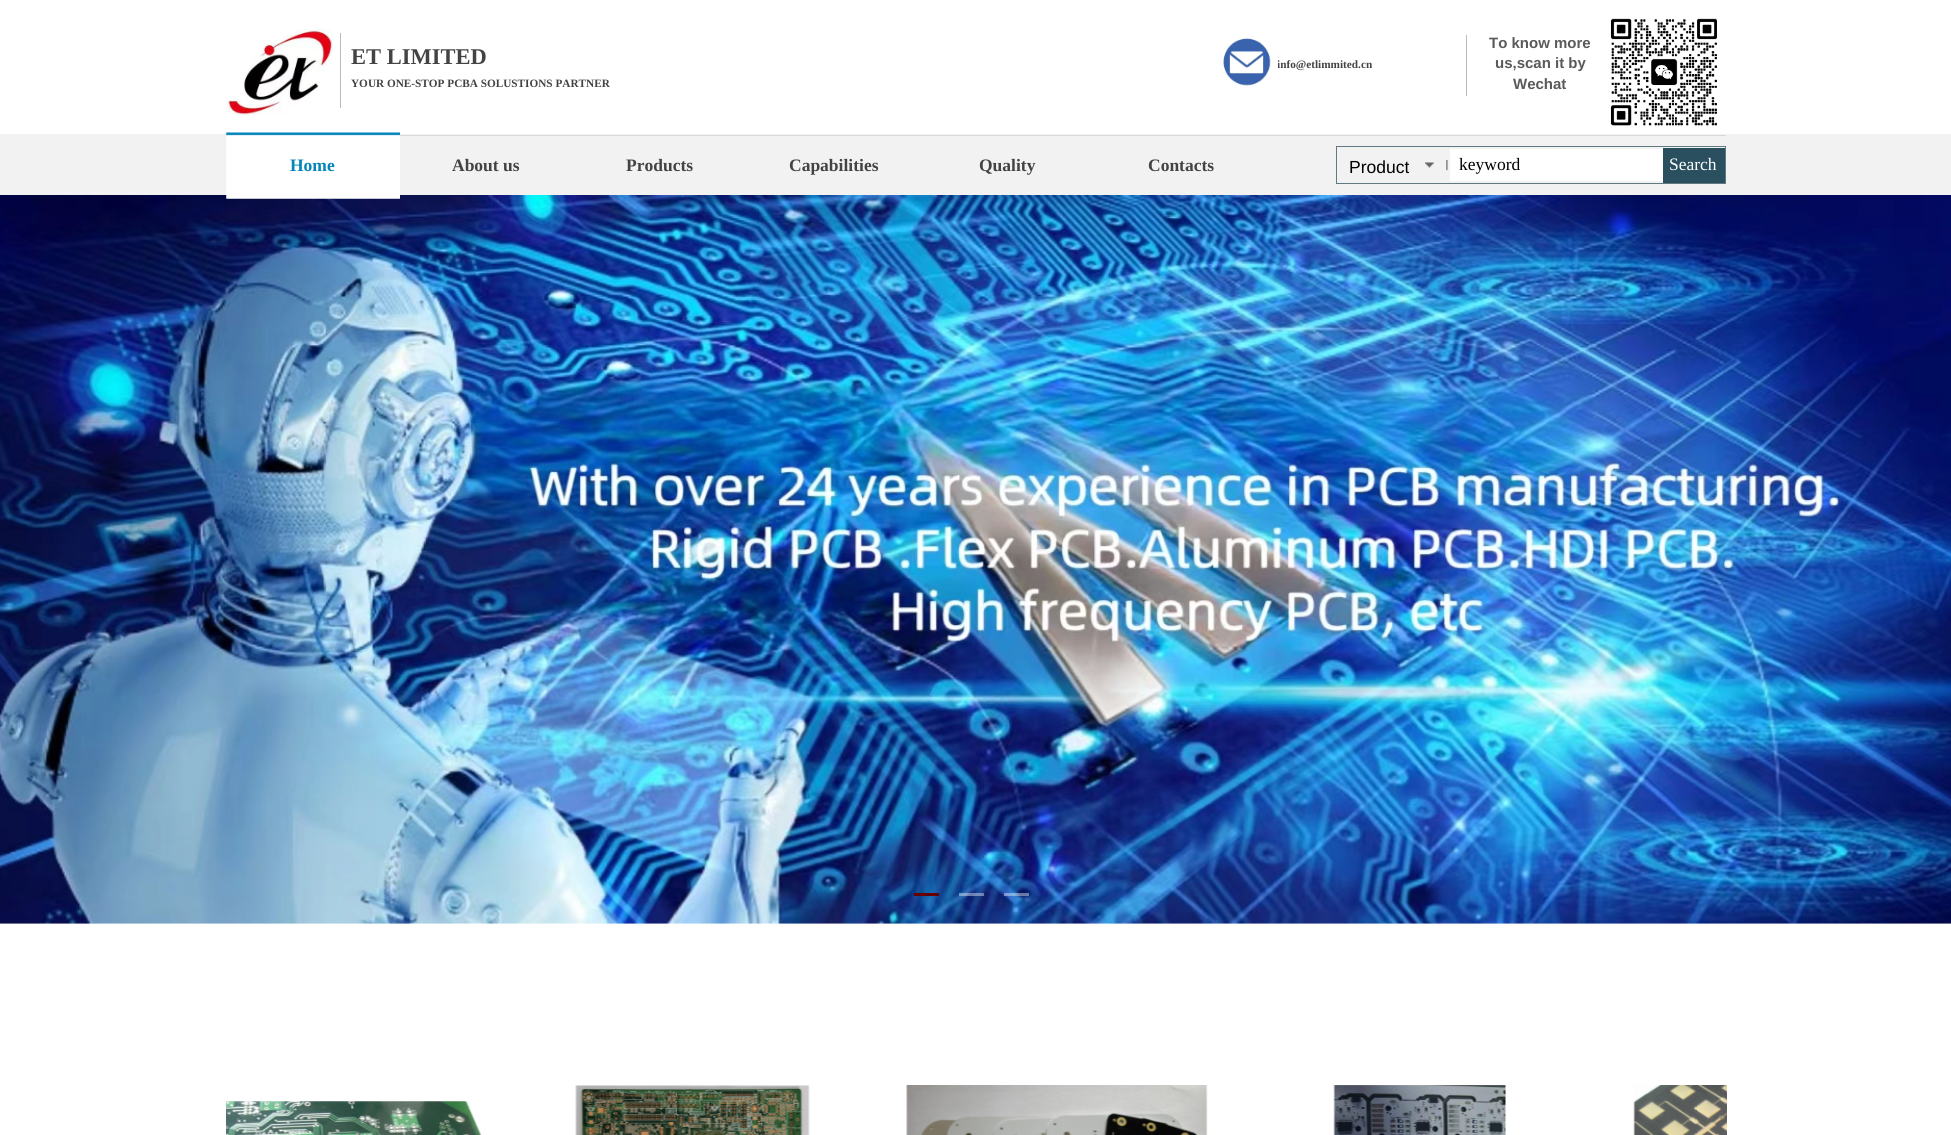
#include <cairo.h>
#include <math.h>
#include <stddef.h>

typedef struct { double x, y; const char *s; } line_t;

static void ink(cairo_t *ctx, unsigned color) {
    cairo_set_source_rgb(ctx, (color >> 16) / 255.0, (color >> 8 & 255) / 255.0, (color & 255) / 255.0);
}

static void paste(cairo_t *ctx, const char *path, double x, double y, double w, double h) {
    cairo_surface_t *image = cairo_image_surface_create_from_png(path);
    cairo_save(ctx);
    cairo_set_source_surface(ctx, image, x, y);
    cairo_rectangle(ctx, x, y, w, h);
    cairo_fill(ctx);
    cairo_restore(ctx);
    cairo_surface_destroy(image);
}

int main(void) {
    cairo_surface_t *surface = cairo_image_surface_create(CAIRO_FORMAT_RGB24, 1951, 1135);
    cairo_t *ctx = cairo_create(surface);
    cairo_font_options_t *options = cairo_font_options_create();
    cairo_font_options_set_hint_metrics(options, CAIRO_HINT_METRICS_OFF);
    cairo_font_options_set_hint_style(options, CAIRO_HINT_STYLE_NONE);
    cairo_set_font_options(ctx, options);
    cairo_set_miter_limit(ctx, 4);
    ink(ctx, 0xFFFFFF);
    cairo_paint(ctx);
    paste(ctx, "media/1.png", 226, 29, 107, 86);
    ink(ctx, 0xC3B8B8);
    cairo_rectangle(ctx, 340, 33, 1, 75);
    cairo_fill(ctx);
    cairo_select_font_face(ctx, "Liberation Serif", CAIRO_FONT_SLANT_NORMAL, CAIRO_FONT_WEIGHT_BOLD);
    cairo_set_font_size(ctx, 22.5);
    ink(ctx, 0x434343);
    cairo_move_to(ctx, 351, 64);
    cairo_show_text(ctx, "ET LIMITED");
    cairo_set_font_size(ctx, 11.25);
    cairo_move_to(ctx, 351, 87);
    cairo_show_text(ctx, "YOUR ONE-STOP PCBA SOLUSTIONS PARTNER");
    paste(ctx, "media/2.png", 1223, 38, 48, 48);
    cairo_save(ctx);
    cairo_rectangle(ctx, 1278, 54, 280, 27);
    cairo_clip(ctx);
    cairo_move_to(ctx, 1277, 68);
    cairo_show_text(ctx, "info@etlimmited.cn");
    cairo_restore(ctx);
    ink(ctx, 0xC3B8B8);
    cairo_rectangle(ctx, 1466, 35, 1, 61);
    cairo_fill(ctx);
    cairo_select_font_face(ctx, "Liberation Sans", CAIRO_FONT_SLANT_NORMAL, CAIRO_FONT_WEIGHT_BOLD);
    cairo_set_font_size(ctx, 15);
    ink(ctx, 0x5A5A5A);
    {
        static const line_t items[] = {
            {1489, 48, "To know more"},
            {1495, 68, "us,scan it by"},
            {1513, 89, "Wechat"},
        };
        for (size_t i = 0; i < sizeof items / sizeof *items; i++) {
            cairo_move_to(ctx, items[i].x, items[i].y);
            cairo_show_text(ctx, items[i].s);
        }
    }
    paste(ctx, "media/3.png", 1610, 18, 107, 108);
    ink(ctx, 0xF2F2F2);
    cairo_rectangle(ctx, 0, 134, 1951, 61);
    cairo_fill(ctx);
    ink(ctx, 0xD9D9D9);
    cairo_rectangle(ctx, 226, 135, 1500, 1);
    cairo_fill(ctx);
    paste(ctx, "media/6.png", 0, 195, 1951, 729);
    paste(ctx, "media/4.png", 226, 132, 174, 67);
    cairo_select_font_face(ctx, "Liberation Serif", CAIRO_FONT_SLANT_NORMAL, CAIRO_FONT_WEIGHT_BOLD);
    cairo_set_font_size(ctx, 17.5);
    ink(ctx, 0x0384BB);
    cairo_move_to(ctx, 290, 171);
    cairo_show_text(ctx, "Home");
    ink(ctx, 0x434343);
    {
        static const line_t items[] = {
            {452, 171, "About us"},
            {626, 171, "Products"},
            {789, 171, "Capabilities"},
            {979, 171, "Quality"},
            {1148, 171, "Contacts"},
        };
        for (size_t i = 0; i < sizeof items / sizeof *items; i++) {
            cairo_move_to(ctx, items[i].x, items[i].y);
            cairo_show_text(ctx, items[i].s);
        }
    }
    cairo_rectangle(ctx, 1336.5, 146.5, 389, 37);
    ink(ctx, 0x617983);
    cairo_set_line_width(ctx, 1);
    cairo_stroke(ctx);
    paste(ctx, "media/5.png", 1425, 160, 23, 11);
    cairo_select_font_face(ctx, "Liberation Sans", CAIRO_FONT_SLANT_NORMAL, CAIRO_FONT_WEIGHT_NORMAL);
    ink(ctx, 0x000000);
    cairo_move_to(ctx, 1349, 173);
    cairo_show_text(ctx, "Product");
    ink(ctx, 0xFFFFFF);
    cairo_rectangle(ctx, 1450, 149, 213, 32);
    cairo_fill(ctx);
    cairo_select_font_face(ctx, "Liberation Serif", CAIRO_FONT_SLANT_NORMAL, CAIRO_FONT_WEIGHT_NORMAL);
    ink(ctx, 0x000000);
    cairo_move_to(ctx, 1459, 170);
    cairo_show_text(ctx, "keyword");
    ink(ctx, 0x2A5060);
    cairo_rectangle(ctx, 1663, 148, 62, 35);
    cairo_fill(ctx);
    ink(ctx, 0xFFFFFF);
    cairo_move_to(ctx, 1669, 170);
    cairo_show_text(ctx, "Search");
    ink(ctx, 0x660000);
    cairo_rectangle(ctx, 914, 893, 25, 3);
    cairo_fill(ctx);
    cairo_set_source_rgba(ctx, 1, 1, 1, 0.4);
    cairo_rectangle(ctx, 959, 893, 25, 3);
    cairo_fill(ctx);
    cairo_rectangle(ctx, 1004, 893, 25, 3);
    cairo_fill(ctx);
    paste(ctx, "media/7.png", 226, 1101, 256, 34);
    paste(ctx, "media/8.png", 575, 1085, 235, 50);
    paste(ctx, "media/9.png", 906, 1085, 302, 50);
    paste(ctx, "media/10.png", 1333, 1085, 173, 50);
    paste(ctx, "media/11.png", 1633, 1085, 94, 50);
    cairo_surface_write_to_png(surface, "image.png");
    cairo_font_options_destroy(options);
    cairo_destroy(ctx);
    cairo_surface_destroy(surface);
    return 0;
}
